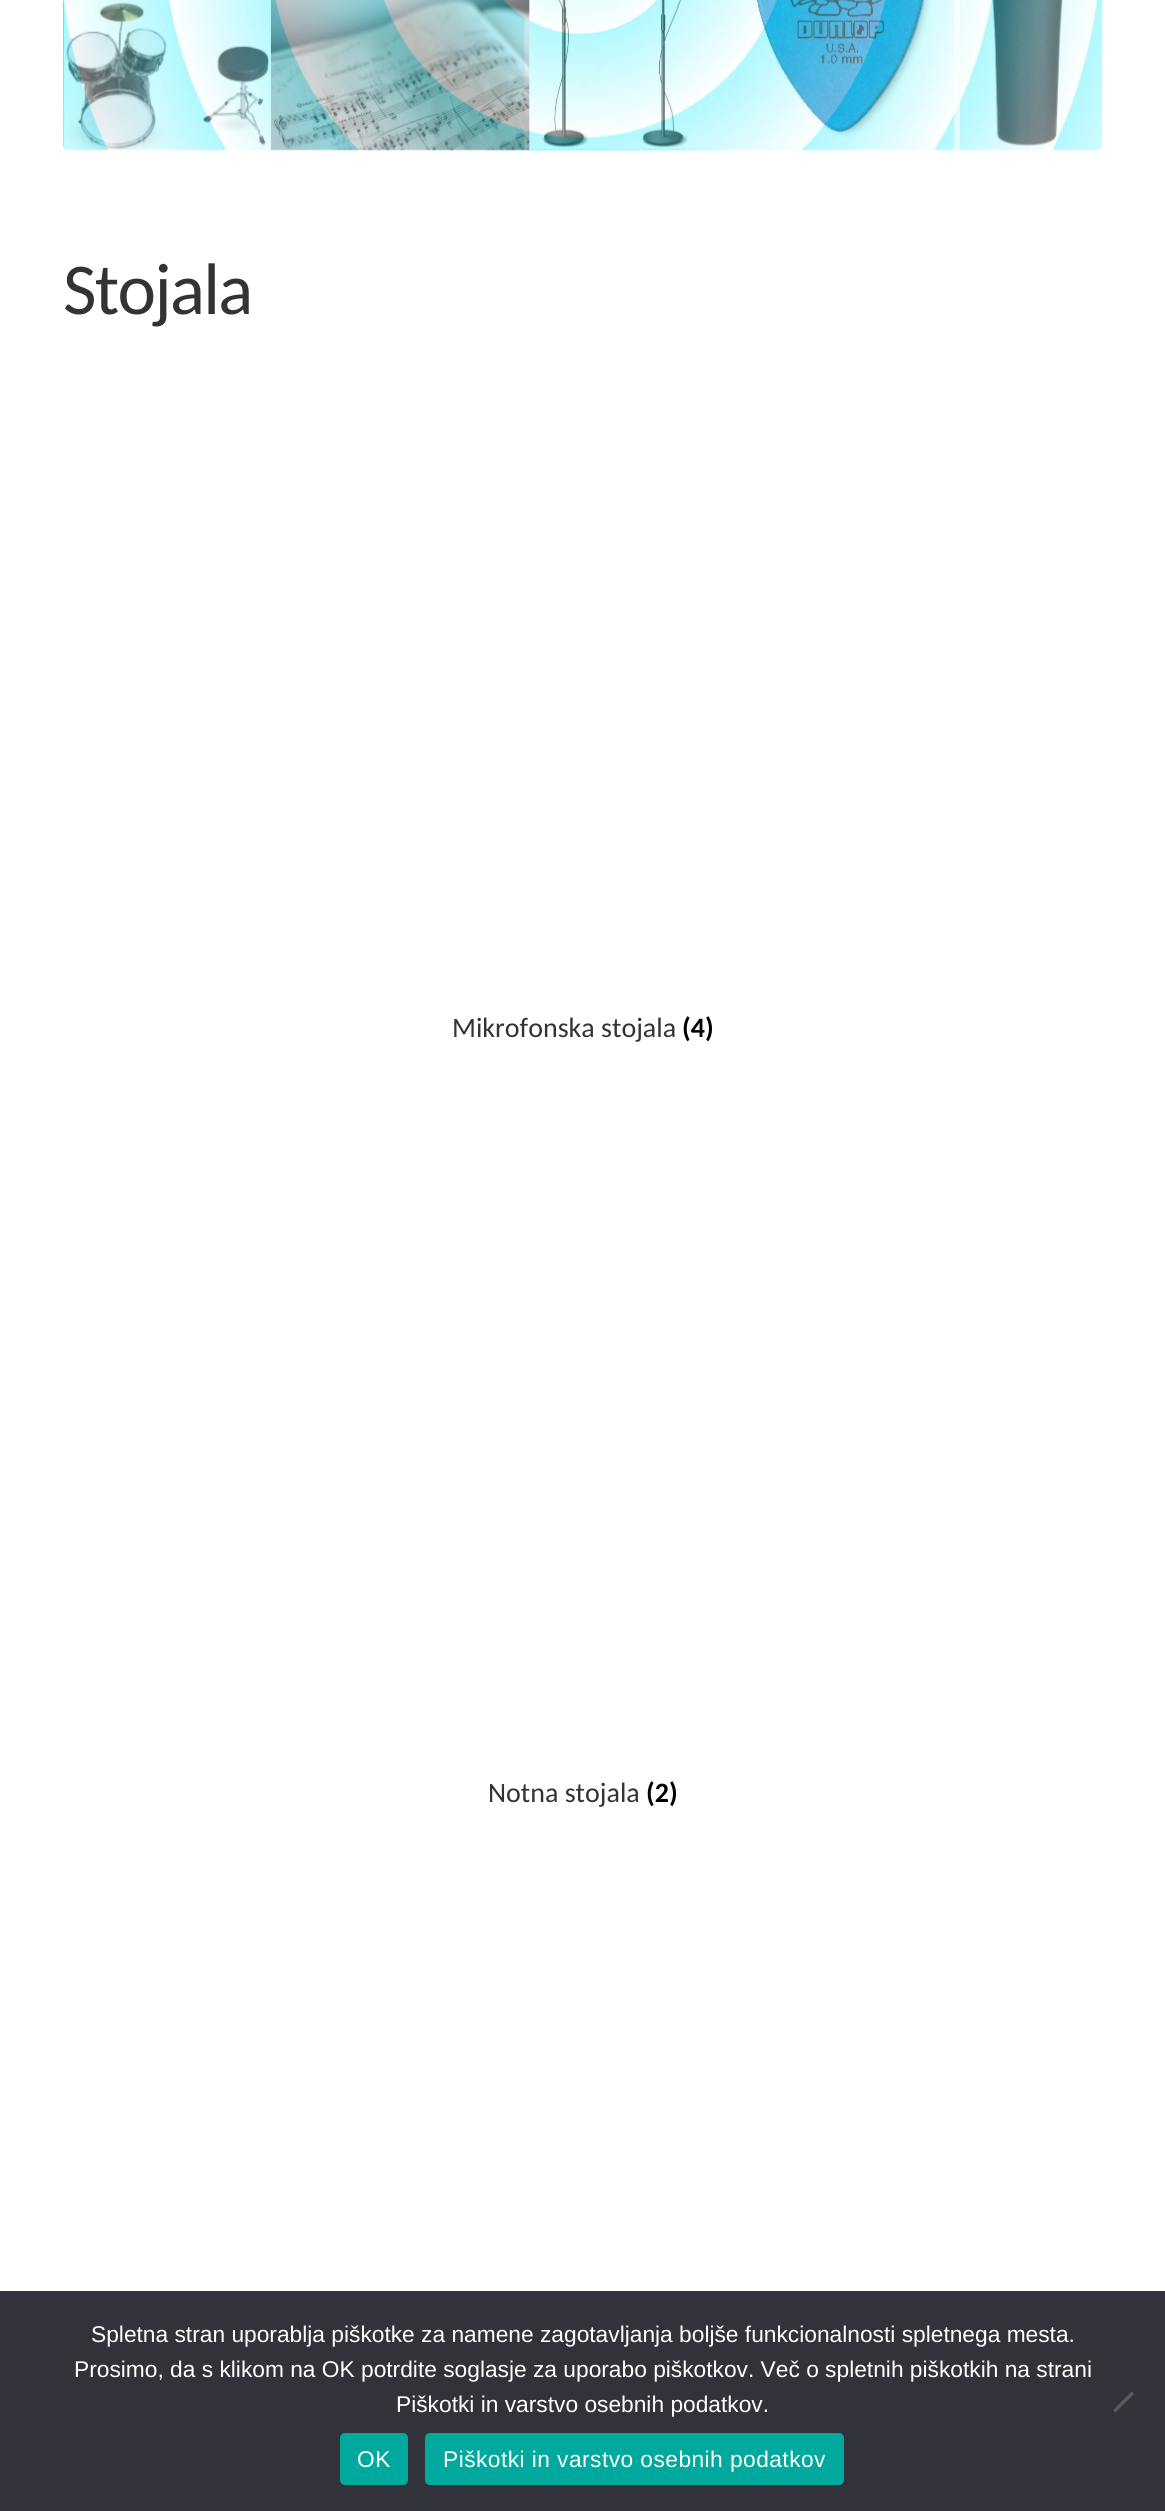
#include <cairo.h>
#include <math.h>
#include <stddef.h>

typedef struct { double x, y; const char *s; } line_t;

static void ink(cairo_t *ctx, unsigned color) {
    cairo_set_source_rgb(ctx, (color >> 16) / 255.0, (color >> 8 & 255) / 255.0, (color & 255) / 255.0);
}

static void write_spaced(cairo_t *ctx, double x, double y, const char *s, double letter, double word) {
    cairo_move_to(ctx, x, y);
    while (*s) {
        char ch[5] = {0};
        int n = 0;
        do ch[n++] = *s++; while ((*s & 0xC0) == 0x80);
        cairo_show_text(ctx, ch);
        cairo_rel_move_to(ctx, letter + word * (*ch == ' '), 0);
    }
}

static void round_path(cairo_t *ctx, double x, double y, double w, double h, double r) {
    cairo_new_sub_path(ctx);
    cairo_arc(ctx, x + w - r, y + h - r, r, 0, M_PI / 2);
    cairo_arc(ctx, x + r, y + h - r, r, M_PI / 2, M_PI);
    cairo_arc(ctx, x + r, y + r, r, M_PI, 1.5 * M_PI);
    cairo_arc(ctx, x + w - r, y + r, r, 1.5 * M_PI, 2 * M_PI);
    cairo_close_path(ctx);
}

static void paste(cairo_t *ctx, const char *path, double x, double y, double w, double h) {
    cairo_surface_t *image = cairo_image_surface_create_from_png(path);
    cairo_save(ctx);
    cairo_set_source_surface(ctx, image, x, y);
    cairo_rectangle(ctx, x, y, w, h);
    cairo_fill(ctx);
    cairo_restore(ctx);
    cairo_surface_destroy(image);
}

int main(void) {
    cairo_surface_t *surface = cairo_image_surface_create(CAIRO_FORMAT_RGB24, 1165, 2511);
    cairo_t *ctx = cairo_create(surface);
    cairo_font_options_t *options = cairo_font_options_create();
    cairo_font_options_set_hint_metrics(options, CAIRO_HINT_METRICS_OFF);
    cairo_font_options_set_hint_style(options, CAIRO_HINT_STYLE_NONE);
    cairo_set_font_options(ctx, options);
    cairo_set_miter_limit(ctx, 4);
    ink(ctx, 0xFFFFFF);
    cairo_paint(ctx);
    paste(ctx, "media/1.png", 63, 0, 1040, 151);
    cairo_select_font_face(ctx, "Carlito", CAIRO_FONT_SLANT_NORMAL, CAIRO_FONT_WEIGHT_NORMAL);
    cairo_set_font_size(ctx, 73);
    ink(ctx, 0x333333);
    write_spaced(ctx, 63, 314, "Stojala", -1.75, 0);
    cairo_set_font_size(ctx, 28);
    cairo_move_to(ctx, 452, 1037);
    cairo_show_text(ctx, "Mikrofonska stojala");
    cairo_select_font_face(ctx, "Carlito", CAIRO_FONT_SLANT_NORMAL, CAIRO_FONT_WEIGHT_BOLD);
    ink(ctx, 0x000000);
    cairo_move_to(ctx, 682, 1037);
    cairo_show_text(ctx, "(4)");
    cairo_select_font_face(ctx, "Carlito", CAIRO_FONT_SLANT_NORMAL, CAIRO_FONT_WEIGHT_NORMAL);
    ink(ctx, 0x333333);
    cairo_move_to(ctx, 488, 1802);
    cairo_show_text(ctx, "Notna stojala");
    cairo_select_font_face(ctx, "Carlito", CAIRO_FONT_SLANT_NORMAL, CAIRO_FONT_WEIGHT_BOLD);
    ink(ctx, 0x000000);
    cairo_move_to(ctx, 646, 1802);
    cairo_show_text(ctx, "(2)");
    ink(ctx, 0x32323A);
    cairo_rectangle(ctx, 0, 2291, 1165, 220);
    cairo_fill(ctx);
    cairo_select_font_face(ctx, "Liberation Sans", CAIRO_FONT_SLANT_NORMAL, CAIRO_FONT_WEIGHT_NORMAL);
    cairo_set_font_size(ctx, 22.75);
    ink(ctx, 0xFFFFFF);
    {
        static const line_t items[] = {
            {91, 2342, "Spletna stran uporablja piškotke za namene zagotavljanja boljše funkcionalnosti spletnega mesta."},
            {74, 2377, "Prosimo, da s klikom na OK potrdite soglasje za uporabo piškotkov. Več o spletnih piškotkih na strani"},
            {396, 2412, "Piškotki in varstvo osebnih podatkov."},
        };
        for (size_t i = 0; i < sizeof items / sizeof *items; i++) {
            cairo_move_to(ctx, items[i].x, items[i].y);
            cairo_show_text(ctx, items[i].s);
        }
    }
    ink(ctx, 0x59595D);
    cairo_new_path(ctx);
    cairo_move_to(ctx, 1131.5, 2391.5);
    cairo_line_to(ctx, 1134, 2394);
    cairo_line_to(ctx, 1115.5, 2412.5);
    cairo_line_to(ctx, 1113, 2410);
    cairo_close_path(ctx);
    cairo_fill(ctx);
    ink(ctx, 0x00A99D);
    round_path(ctx, 340, 2433, 68, 52, 5);
    cairo_fill(ctx);
    ink(ctx, 0xFFFFFF);
    write_spaced(ctx, 357, 2467, "OK", 0.45, 0);
    ink(ctx, 0x00A99D);
    round_path(ctx, 425, 2433, 419, 52, 5);
    cairo_fill(ctx);
    ink(ctx, 0xFFFFFF);
    write_spaced(ctx, 443, 2467, "Piškotki in varstvo osebnih podatkov", 0.45, 0);
    cairo_surface_write_to_png(surface, "image.png");
    cairo_font_options_destroy(options);
    cairo_destroy(ctx);
    cairo_surface_destroy(surface);
    return 0;
}
